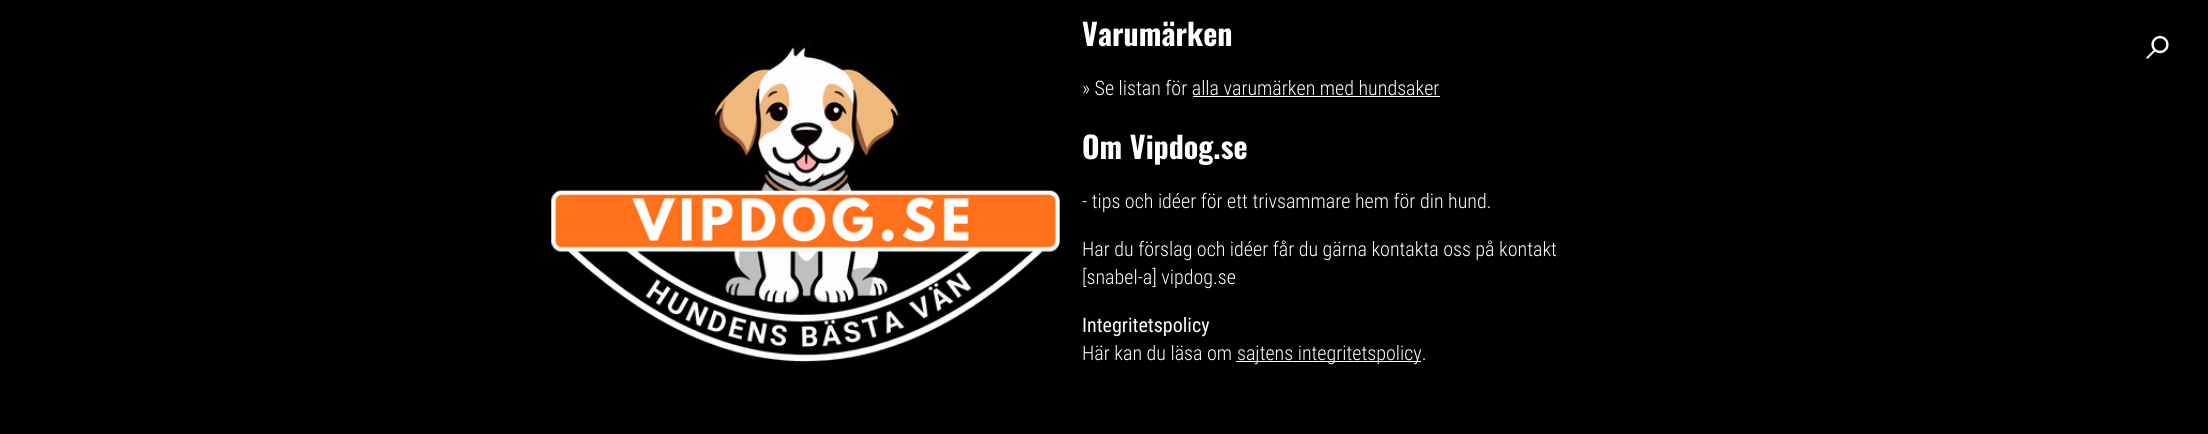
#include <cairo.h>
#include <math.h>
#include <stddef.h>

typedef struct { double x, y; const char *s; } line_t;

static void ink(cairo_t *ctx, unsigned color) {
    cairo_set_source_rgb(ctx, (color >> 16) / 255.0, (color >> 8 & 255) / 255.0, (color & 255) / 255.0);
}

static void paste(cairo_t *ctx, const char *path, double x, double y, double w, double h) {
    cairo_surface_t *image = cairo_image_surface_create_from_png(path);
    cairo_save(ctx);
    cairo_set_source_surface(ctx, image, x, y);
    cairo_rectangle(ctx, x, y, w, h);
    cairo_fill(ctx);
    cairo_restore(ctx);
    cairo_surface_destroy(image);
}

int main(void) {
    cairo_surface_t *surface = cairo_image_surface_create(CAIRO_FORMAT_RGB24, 2208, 434);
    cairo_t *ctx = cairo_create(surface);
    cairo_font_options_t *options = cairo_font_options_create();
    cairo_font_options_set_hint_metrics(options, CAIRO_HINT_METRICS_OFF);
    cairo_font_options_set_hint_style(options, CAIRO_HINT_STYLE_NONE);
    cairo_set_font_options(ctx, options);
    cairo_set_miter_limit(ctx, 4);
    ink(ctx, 0x000000);
    cairo_paint(ctx);
    paste(ctx, "media/1.png", 551, 41, 509, 321);
    cairo_select_font_face(ctx, "Oswald", CAIRO_FONT_SLANT_NORMAL, CAIRO_FONT_WEIGHT_BOLD);
    cairo_set_font_size(ctx, 30);
    ink(ctx, 0xFFFFFF);
    cairo_move_to(ctx, 1082, 46);
    cairo_show_text(ctx, "Varumärken");
    cairo_select_font_face(ctx, "Roboto Condensed Light", CAIRO_FONT_SLANT_NORMAL, CAIRO_FONT_WEIGHT_NORMAL);
    cairo_set_font_size(ctx, 20);
    cairo_move_to(ctx, 1082, 95);
    cairo_show_text(ctx, "» Se listan för alla varumärken med hundsaker");
    cairo_rectangle(ctx, 1193, 96, 247, 1);
    cairo_fill(ctx);
    cairo_select_font_face(ctx, "Oswald", CAIRO_FONT_SLANT_NORMAL, CAIRO_FONT_WEIGHT_BOLD);
    cairo_set_font_size(ctx, 30);
    cairo_move_to(ctx, 1082, 159);
    cairo_show_text(ctx, "Om Vipdog.se");
    cairo_select_font_face(ctx, "Roboto Condensed Light", CAIRO_FONT_SLANT_NORMAL, CAIRO_FONT_WEIGHT_NORMAL);
    cairo_set_font_size(ctx, 20);
    {
        static const line_t items[] = {
            {1082, 208, "- tips och idéer för ett trivsammare hem för din hund."},
            {1082, 256, "Har du förslag och idéer får du gärna kontakta oss på kontakt"},
            {1082, 284, "[snabel-a] vipdog.se"},
        };
        for (size_t i = 0; i < sizeof items / sizeof *items; i++) {
            cairo_move_to(ctx, items[i].x, items[i].y);
            cairo_show_text(ctx, items[i].s);
        }
    }
    cairo_select_font_face(ctx, "Roboto Condensed", CAIRO_FONT_SLANT_NORMAL, CAIRO_FONT_WEIGHT_NORMAL);
    cairo_move_to(ctx, 1082, 332);
    cairo_show_text(ctx, "Integritetspolicy");
    cairo_select_font_face(ctx, "Roboto Condensed Light", CAIRO_FONT_SLANT_NORMAL, CAIRO_FONT_WEIGHT_NORMAL);
    cairo_move_to(ctx, 1082, 360);
    cairo_show_text(ctx, "Här kan du läsa om");
    cairo_rectangle(ctx, 1236, 361, 185, 1);
    cairo_fill(ctx);
    cairo_move_to(ctx, 1237, 360);
    cairo_show_text(ctx, "sajtens integritetspolicy.");
    cairo_select_font_face(ctx, "FreeSerif", CAIRO_FONT_SLANT_NORMAL, CAIRO_FONT_WEIGHT_NORMAL);
    cairo_set_font_size(ctx, 50);
    cairo_move_to(ctx, 2146, 59);
    cairo_show_text(ctx, "⌕");
    cairo_surface_write_to_png(surface, "image.png");
    cairo_font_options_destroy(options);
    cairo_destroy(ctx);
    cairo_surface_destroy(surface);
    return 0;
}
